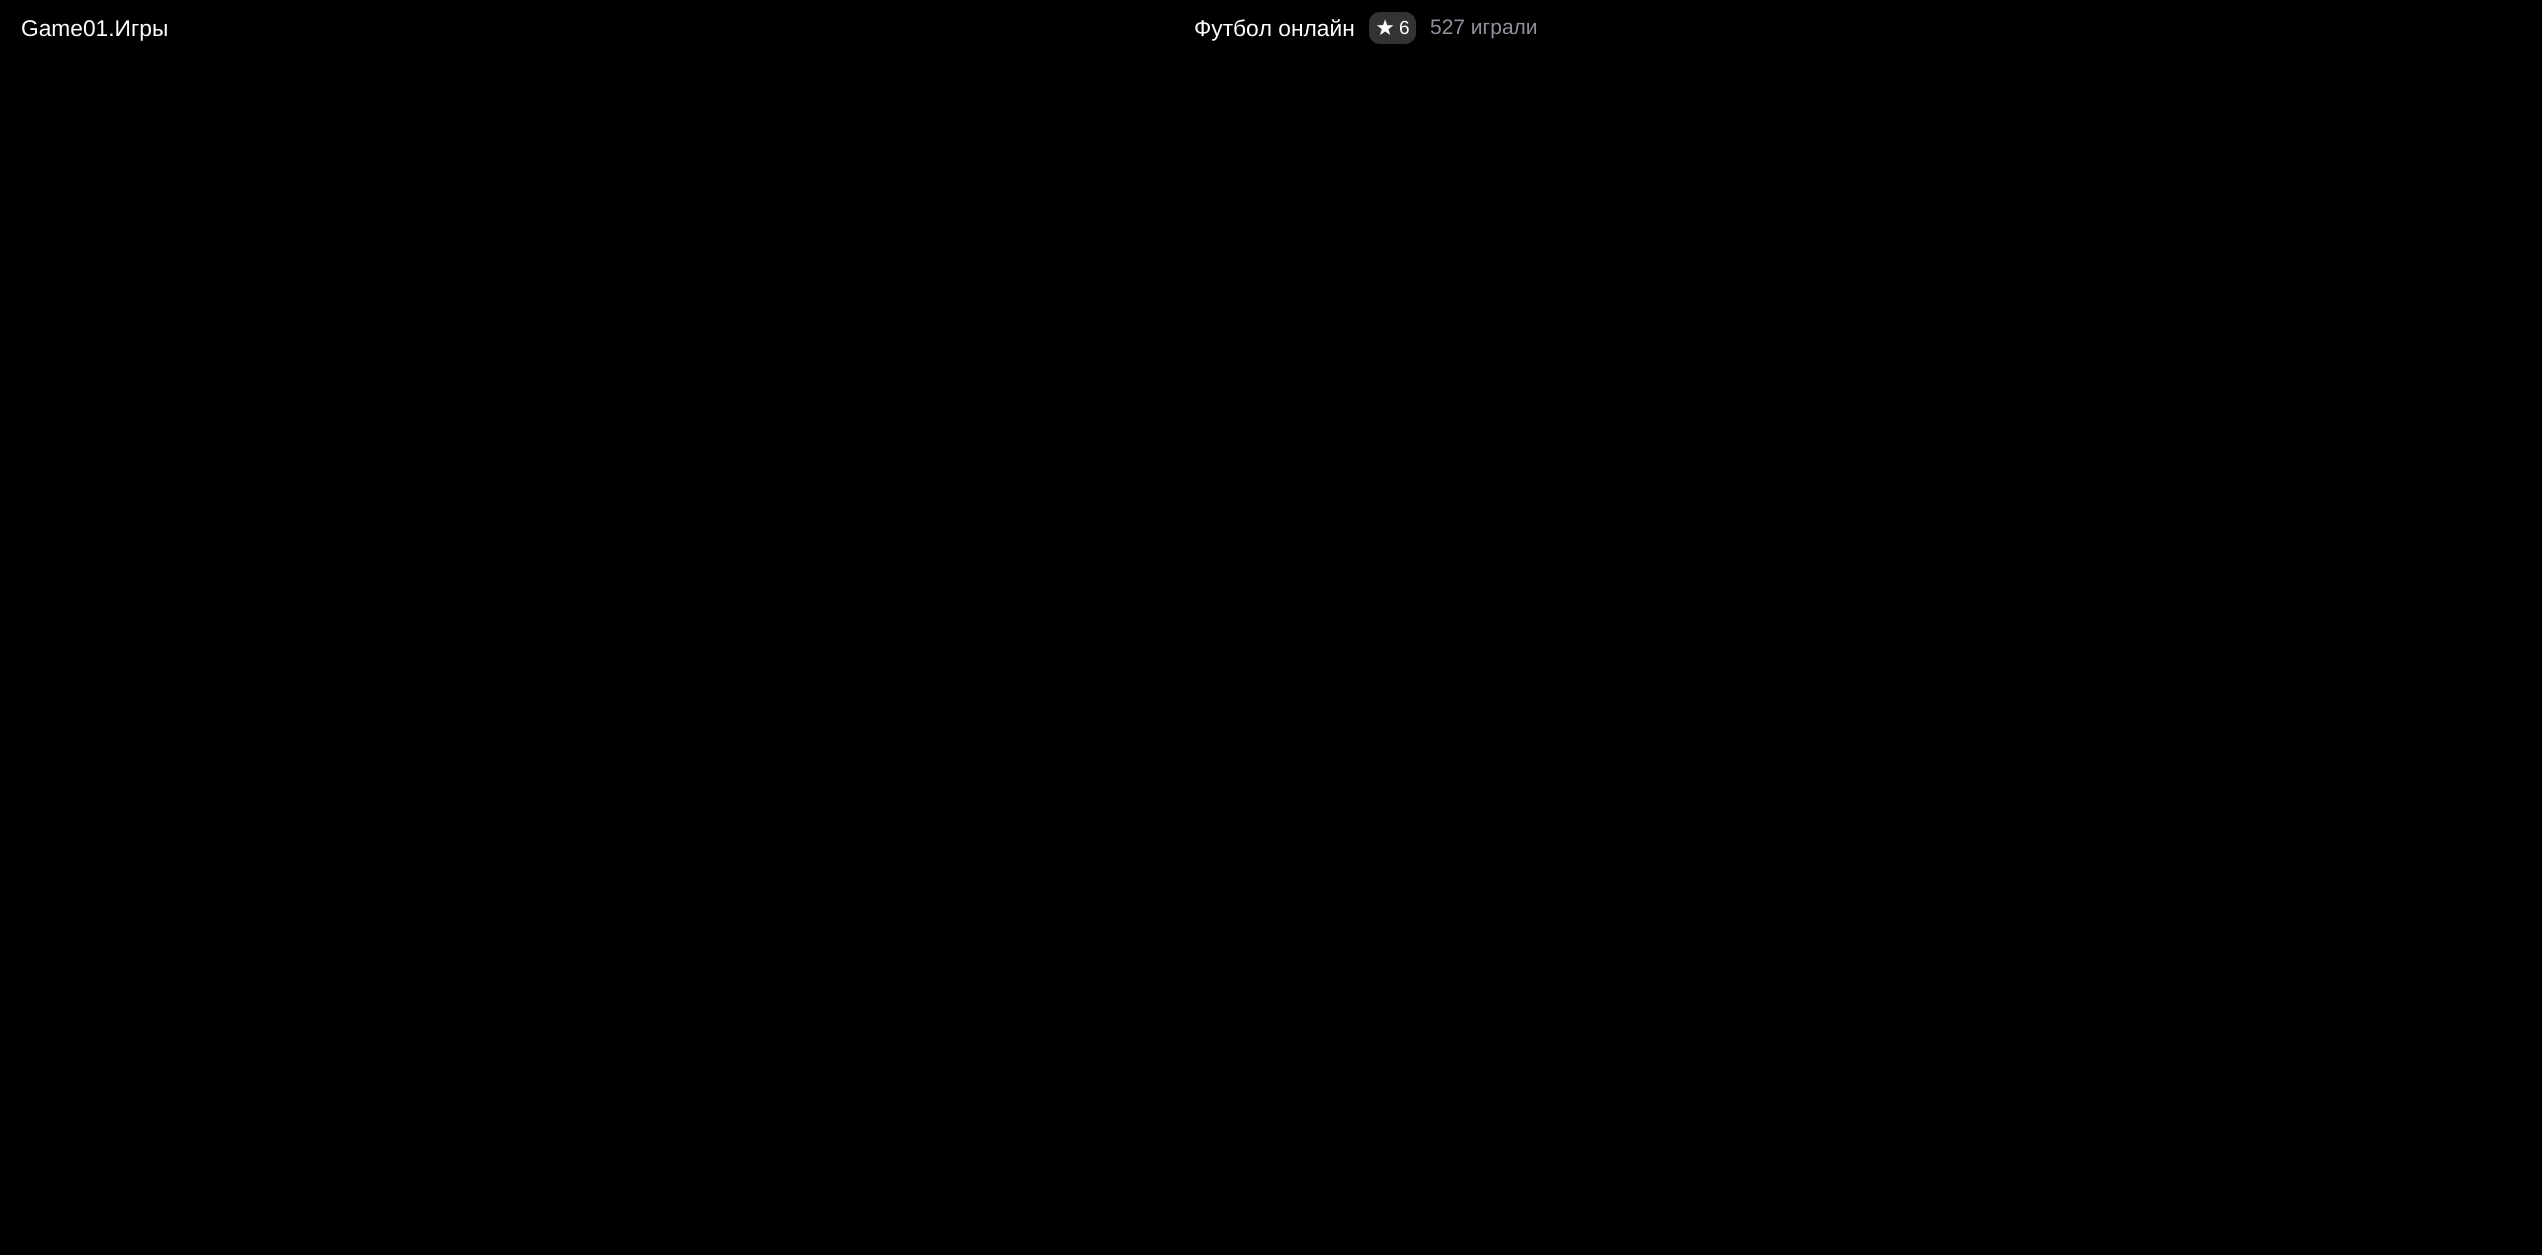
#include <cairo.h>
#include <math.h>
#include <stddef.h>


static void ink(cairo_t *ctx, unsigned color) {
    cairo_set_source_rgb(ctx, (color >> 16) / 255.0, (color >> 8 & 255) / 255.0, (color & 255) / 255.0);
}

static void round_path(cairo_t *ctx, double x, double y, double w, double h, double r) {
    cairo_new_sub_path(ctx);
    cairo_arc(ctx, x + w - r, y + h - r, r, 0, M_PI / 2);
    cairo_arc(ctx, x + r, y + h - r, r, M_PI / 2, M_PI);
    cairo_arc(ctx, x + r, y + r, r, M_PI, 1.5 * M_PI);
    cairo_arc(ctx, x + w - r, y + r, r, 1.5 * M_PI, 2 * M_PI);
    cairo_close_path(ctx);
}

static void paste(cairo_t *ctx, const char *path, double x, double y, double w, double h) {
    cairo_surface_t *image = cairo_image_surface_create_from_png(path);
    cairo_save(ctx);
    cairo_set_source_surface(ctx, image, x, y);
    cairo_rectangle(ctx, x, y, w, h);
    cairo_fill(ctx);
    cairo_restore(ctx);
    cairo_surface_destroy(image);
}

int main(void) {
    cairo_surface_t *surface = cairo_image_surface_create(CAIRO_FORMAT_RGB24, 2542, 1255);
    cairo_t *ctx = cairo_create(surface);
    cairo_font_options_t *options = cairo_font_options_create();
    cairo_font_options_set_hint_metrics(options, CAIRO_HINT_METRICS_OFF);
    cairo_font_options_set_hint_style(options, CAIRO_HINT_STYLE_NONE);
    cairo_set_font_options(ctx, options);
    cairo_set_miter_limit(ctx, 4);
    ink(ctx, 0x000000);
    cairo_paint(ctx);
    cairo_select_font_face(ctx, "Liberation Sans", CAIRO_FONT_SLANT_NORMAL, CAIRO_FONT_WEIGHT_NORMAL);
    cairo_set_font_size(ctx, 22.75);
    ink(ctx, 0xFFFFFF);
    cairo_move_to(ctx, 21, 36);
    cairo_show_text(ctx, "Game01.Игры");
    cairo_move_to(ctx, 1194, 36);
    cairo_show_text(ctx, "Футбол онлайн");
    ink(ctx, 0x333333);
    round_path(ctx, 1369, 12, 47, 32, 11);
    cairo_fill(ctx);
    paste(ctx, "media/1.png", 1377, 19, 17, 16);
    cairo_set_font_size(ctx, 19);
    ink(ctx, 0xFFFFFF);
    cairo_move_to(ctx, 1399, 34);
    cairo_show_text(ctx, "6");
    cairo_set_font_size(ctx, 21);
    ink(ctx, 0x90919D);
    cairo_move_to(ctx, 1430, 34);
    cairo_show_text(ctx, "527 играли");
    cairo_surface_write_to_png(surface, "image.png");
    cairo_font_options_destroy(options);
    cairo_destroy(ctx);
    cairo_surface_destroy(surface);
    return 0;
}
